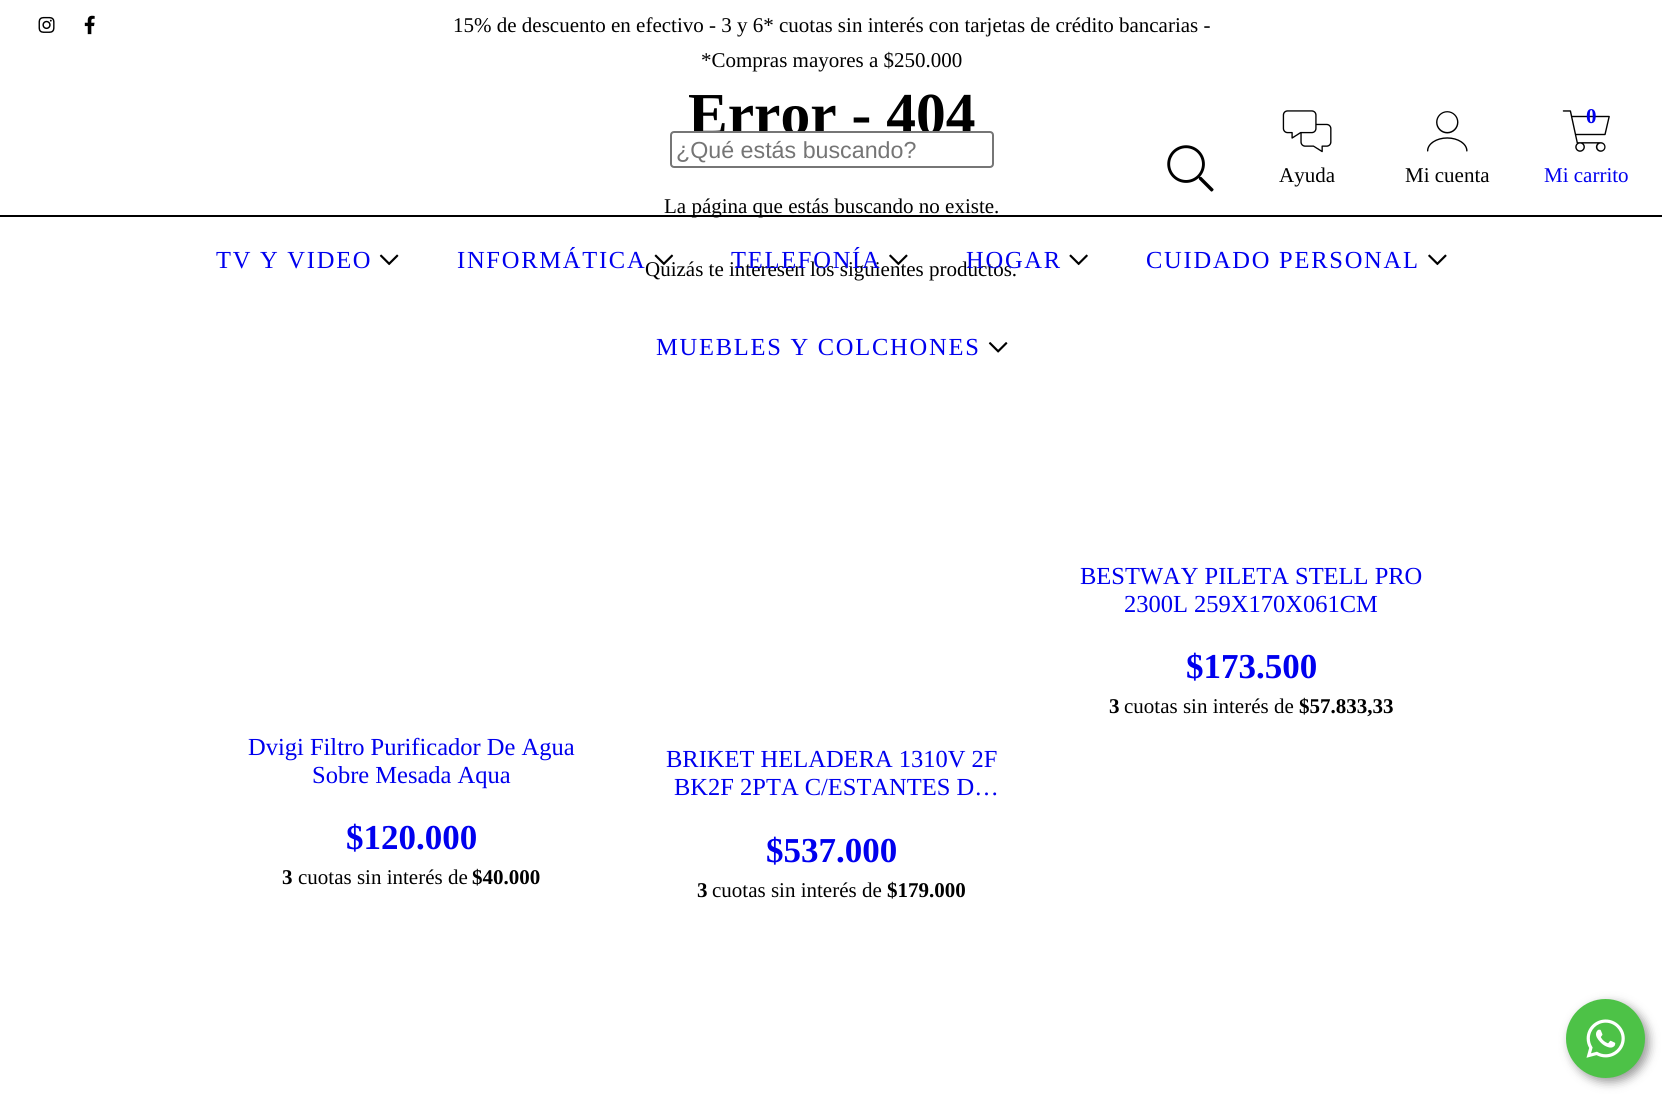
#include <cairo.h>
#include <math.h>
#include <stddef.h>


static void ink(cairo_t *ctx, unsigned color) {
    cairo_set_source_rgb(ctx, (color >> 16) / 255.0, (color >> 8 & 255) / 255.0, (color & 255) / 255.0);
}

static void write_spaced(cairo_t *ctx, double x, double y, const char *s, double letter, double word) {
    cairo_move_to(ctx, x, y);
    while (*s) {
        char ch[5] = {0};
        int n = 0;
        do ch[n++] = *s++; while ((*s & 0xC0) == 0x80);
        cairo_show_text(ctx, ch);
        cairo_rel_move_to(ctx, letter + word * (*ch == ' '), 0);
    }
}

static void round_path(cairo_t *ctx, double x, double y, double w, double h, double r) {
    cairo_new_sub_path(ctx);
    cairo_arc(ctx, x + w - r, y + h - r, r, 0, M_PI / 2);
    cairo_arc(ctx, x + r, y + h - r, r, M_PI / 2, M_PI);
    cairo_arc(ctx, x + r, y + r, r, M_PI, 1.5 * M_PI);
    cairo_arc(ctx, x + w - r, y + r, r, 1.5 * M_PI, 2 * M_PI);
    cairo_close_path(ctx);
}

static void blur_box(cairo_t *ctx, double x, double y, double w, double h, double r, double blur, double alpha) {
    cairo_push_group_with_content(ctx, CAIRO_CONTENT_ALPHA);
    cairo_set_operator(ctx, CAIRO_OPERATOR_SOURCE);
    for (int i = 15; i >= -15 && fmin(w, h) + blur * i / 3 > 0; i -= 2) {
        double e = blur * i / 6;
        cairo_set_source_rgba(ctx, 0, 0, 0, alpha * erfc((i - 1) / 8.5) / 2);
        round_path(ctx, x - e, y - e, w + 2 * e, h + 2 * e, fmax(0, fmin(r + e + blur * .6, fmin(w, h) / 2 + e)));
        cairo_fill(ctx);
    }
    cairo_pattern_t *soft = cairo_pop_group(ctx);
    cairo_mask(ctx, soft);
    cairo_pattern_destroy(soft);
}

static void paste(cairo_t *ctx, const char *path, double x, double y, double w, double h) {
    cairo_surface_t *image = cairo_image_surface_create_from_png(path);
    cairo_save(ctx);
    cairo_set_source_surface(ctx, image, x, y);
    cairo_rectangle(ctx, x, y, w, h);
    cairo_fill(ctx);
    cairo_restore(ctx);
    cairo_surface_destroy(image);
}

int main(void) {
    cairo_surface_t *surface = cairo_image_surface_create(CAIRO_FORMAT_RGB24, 1662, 1095);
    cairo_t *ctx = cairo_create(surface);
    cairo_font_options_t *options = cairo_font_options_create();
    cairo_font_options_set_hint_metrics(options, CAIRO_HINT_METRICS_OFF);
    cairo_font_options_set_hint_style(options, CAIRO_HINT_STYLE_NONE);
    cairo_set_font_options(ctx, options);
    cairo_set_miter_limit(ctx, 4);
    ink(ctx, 0xFFFFFF);
    cairo_paint(ctx);
    paste(ctx, "media/1.png", 38, 16, 17, 17);
    paste(ctx, "media/2.png", 84, 15, 11, 20);
    cairo_select_font_face(ctx, "Liberation Serif", CAIRO_FONT_SLANT_NORMAL, CAIRO_FONT_WEIGHT_NORMAL);
    cairo_set_font_size(ctx, 21);
    ink(ctx, 0x000000);
    cairo_move_to(ctx, 453, 32);
    cairo_show_text(ctx, "15% de descuento en efectivo - 3 y 6* cuotas sin interés con tarjetas de crédito bancarias -");
    cairo_move_to(ctx, 701, 67);
    cairo_show_text(ctx, "*Compras mayores a $250.000");
    cairo_select_font_face(ctx, "Liberation Serif", CAIRO_FONT_SLANT_NORMAL, CAIRO_FONT_WEIGHT_BOLD);
    cairo_set_font_size(ctx, 59.5);
    cairo_move_to(ctx, 688, 134);
    cairo_show_text(ctx, "Error - 404");
    ink(ctx, 0xFFFFFF);
    round_path(ctx, 671, 132, 322, 35, 3);
    cairo_fill_preserve(ctx);
    ink(ctx, 0x767676);
    cairo_stroke(ctx);
    cairo_select_font_face(ctx, "Liberation Sans", CAIRO_FONT_SLANT_NORMAL, CAIRO_FONT_WEIGHT_NORMAL);
    cairo_set_font_size(ctx, 23.25);
    ink(ctx, 0x757575);
    cairo_move_to(ctx, 676, 158);
    cairo_show_text(ctx, "¿Qué estás buscando?");
    paste(ctx, "media/3.png", 1167, 145, 47, 47);
    paste(ctx, "media/4.png", 1282, 110, 50, 43);
    cairo_select_font_face(ctx, "Liberation Serif", CAIRO_FONT_SLANT_NORMAL, CAIRO_FONT_WEIGHT_NORMAL);
    cairo_set_font_size(ctx, 21);
    ink(ctx, 0x000000);
    cairo_move_to(ctx, 1279, 182);
    cairo_show_text(ctx, "Ayuda");
    paste(ctx, "media/5.png", 1427, 111, 41, 41);
    cairo_move_to(ctx, 1405, 182);
    cairo_show_text(ctx, "Mi cuenta");
    paste(ctx, "media/6.png", 1562, 110, 48, 42);
    cairo_select_font_face(ctx, "Liberation Serif", CAIRO_FONT_SLANT_NORMAL, CAIRO_FONT_WEIGHT_BOLD);
    ink(ctx, 0x0000EE);
    cairo_move_to(ctx, 1586, 123);
    cairo_show_text(ctx, "0");
    cairo_select_font_face(ctx, "Liberation Serif", CAIRO_FONT_SLANT_NORMAL, CAIRO_FONT_WEIGHT_NORMAL);
    cairo_move_to(ctx, 1544, 182);
    cairo_show_text(ctx, "Mi carrito");
    ink(ctx, 0x000000);
    cairo_rectangle(ctx, 0, 215, 1662, 2);
    cairo_fill(ctx);
    cairo_set_font_size(ctx, 24.5);
    ink(ctx, 0x0000EE);
    write_spaced(ctx, 216, 268, "TV Y VIDEO", 1.75, 0);
    paste(ctx, "media/7.png", 379, 254, 20, 12);
    write_spaced(ctx, 457, 268, "INFORMÁTICA", 1.75, 0);
    cairo_set_font_size(ctx, 21);
    ink(ctx, 0x000000);
    cairo_move_to(ctx, 645, 276);
    cairo_show_text(ctx, "Quizás te interesen los siguientes productos.");
    paste(ctx, "media/8.png", 654, 254, 20, 12);
    cairo_set_font_size(ctx, 24.5);
    ink(ctx, 0x0000EE);
    write_spaced(ctx, 731, 268, "TELEFONÍA", 1.75, 0);
    paste(ctx, "media/9.png", 889, 254, 19, 12);
    write_spaced(ctx, 966, 268, "HOGAR", 1.75, 0);
    paste(ctx, "media/10.png", 1069, 254, 19, 12);
    write_spaced(ctx, 1146, 268, "CUIDADO PERSONAL", 1.75, 0);
    paste(ctx, "media/11.png", 1428, 254, 19, 12);
    write_spaced(ctx, 656, 355, "MUEBLES Y COLCHONES", 1.75, 0);
    paste(ctx, "media/12.png", 988, 342, 20, 11);
    cairo_set_font_size(ctx, 21);
    ink(ctx, 0x000000);
    cairo_move_to(ctx, 664, 213);
    cairo_show_text(ctx, "La página que estás buscando no existe.");
    cairo_set_font_size(ctx, 24.5);
    ink(ctx, 0x0000EE);
    cairo_move_to(ctx, 1080, 584);
    cairo_show_text(ctx, "BESTWAY PILETA STELL PRO");
    cairo_move_to(ctx, 1124, 612);
    cairo_show_text(ctx, "2300L 259X170X061CM");
    cairo_select_font_face(ctx, "Liberation Serif", CAIRO_FONT_SLANT_NORMAL, CAIRO_FONT_WEIGHT_BOLD);
    cairo_set_font_size(ctx, 35);
    cairo_move_to(ctx, 1186, 678);
    cairo_show_text(ctx, "$173.500");
    cairo_set_font_size(ctx, 21);
    ink(ctx, 0x000000);
    cairo_move_to(ctx, 1109, 713);
    cairo_show_text(ctx, "3");
    cairo_select_font_face(ctx, "Liberation Serif", CAIRO_FONT_SLANT_NORMAL, CAIRO_FONT_WEIGHT_NORMAL);
    cairo_move_to(ctx, 1124, 713);
    cairo_show_text(ctx, "cuotas sin interés de");
    cairo_select_font_face(ctx, "Liberation Serif", CAIRO_FONT_SLANT_NORMAL, CAIRO_FONT_WEIGHT_BOLD);
    cairo_move_to(ctx, 1299, 713);
    cairo_show_text(ctx, "$57.833,33");
    cairo_select_font_face(ctx, "Liberation Serif", CAIRO_FONT_SLANT_NORMAL, CAIRO_FONT_WEIGHT_NORMAL);
    cairo_set_font_size(ctx, 24.5);
    ink(ctx, 0x0000EE);
    cairo_move_to(ctx, 248, 755);
    cairo_show_text(ctx, "Dvigi Filtro Purificador De Agua");
    cairo_move_to(ctx, 312, 783);
    cairo_show_text(ctx, "Sobre Mesada Aqua");
    cairo_select_font_face(ctx, "Liberation Serif", CAIRO_FONT_SLANT_NORMAL, CAIRO_FONT_WEIGHT_BOLD);
    cairo_set_font_size(ctx, 35);
    cairo_move_to(ctx, 346, 849);
    cairo_show_text(ctx, "$120.000");
    cairo_set_font_size(ctx, 21);
    ink(ctx, 0x000000);
    cairo_move_to(ctx, 282, 884);
    cairo_show_text(ctx, "3");
    cairo_select_font_face(ctx, "Liberation Serif", CAIRO_FONT_SLANT_NORMAL, CAIRO_FONT_WEIGHT_NORMAL);
    cairo_move_to(ctx, 298, 884);
    cairo_show_text(ctx, "cuotas sin interés de");
    cairo_select_font_face(ctx, "Liberation Serif", CAIRO_FONT_SLANT_NORMAL, CAIRO_FONT_WEIGHT_BOLD);
    cairo_move_to(ctx, 472, 884);
    cairo_show_text(ctx, "$40.000");
    cairo_select_font_face(ctx, "Liberation Serif", CAIRO_FONT_SLANT_NORMAL, CAIRO_FONT_WEIGHT_NORMAL);
    cairo_set_font_size(ctx, 24.5);
    ink(ctx, 0x0000EE);
    cairo_move_to(ctx, 666, 767);
    cairo_show_text(ctx, "BRIKET HELADERA 1310V 2F");
    cairo_move_to(ctx, 674, 795);
    cairo_show_text(ctx, "BK2F 2PTA C/ESTANTES D…");
    cairo_select_font_face(ctx, "Liberation Serif", CAIRO_FONT_SLANT_NORMAL, CAIRO_FONT_WEIGHT_BOLD);
    cairo_set_font_size(ctx, 35);
    cairo_move_to(ctx, 766, 862);
    cairo_show_text(ctx, "$537.000");
    cairo_set_font_size(ctx, 21);
    ink(ctx, 0x000000);
    cairo_move_to(ctx, 697, 897);
    cairo_show_text(ctx, "3");
    cairo_select_font_face(ctx, "Liberation Serif", CAIRO_FONT_SLANT_NORMAL, CAIRO_FONT_WEIGHT_NORMAL);
    cairo_move_to(ctx, 712, 897);
    cairo_show_text(ctx, "cuotas sin interés de");
    cairo_select_font_face(ctx, "Liberation Serif", CAIRO_FONT_SLANT_NORMAL, CAIRO_FONT_WEIGHT_BOLD);
    cairo_move_to(ctx, 887, 897);
    cairo_show_text(ctx, "$179.000");
    ink(ctx, 0x000000);
    blur_box(ctx, 1570, 1003, 79, 79, 39.5, 5, 0.4);
    ink(ctx, 0x4DC247);
    cairo_arc(ctx, 1605.5, 1038.5, 39.5, 0, 2 * M_PI);
    cairo_fill(ctx);
    paste(ctx, "media/13.png", 1586, 1019, 39, 39);
    cairo_surface_write_to_png(surface, "image.png");
    cairo_font_options_destroy(options);
    cairo_destroy(ctx);
    cairo_surface_destroy(surface);
    return 0;
}
